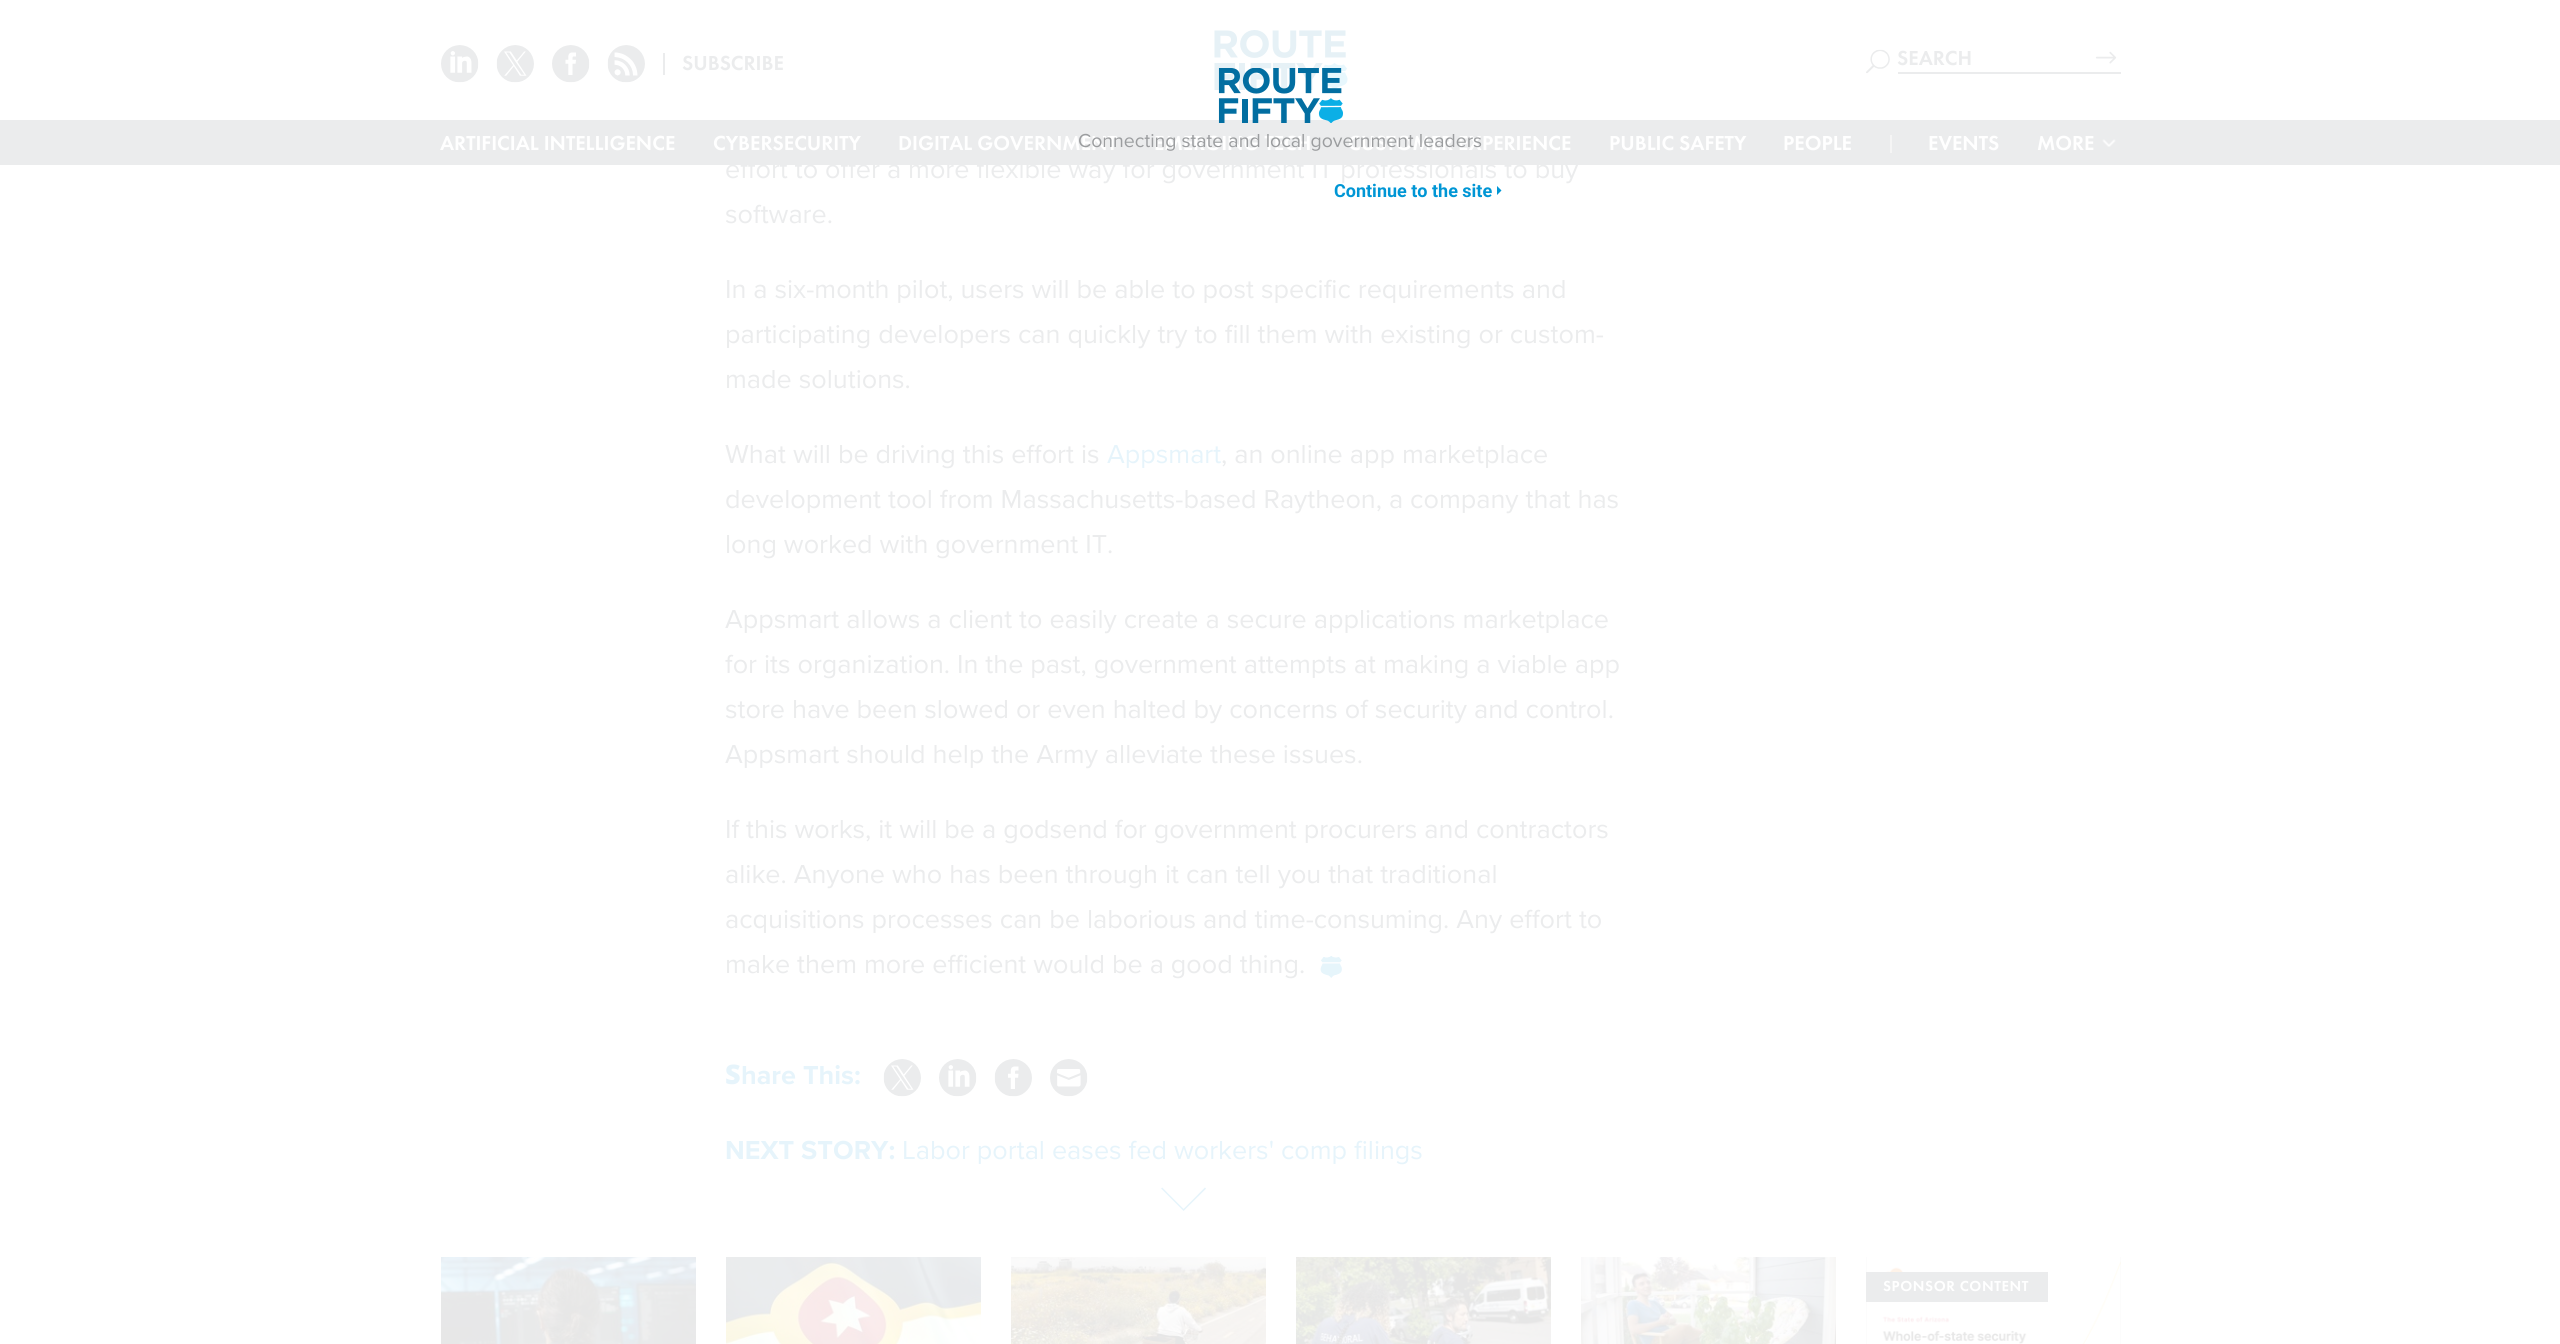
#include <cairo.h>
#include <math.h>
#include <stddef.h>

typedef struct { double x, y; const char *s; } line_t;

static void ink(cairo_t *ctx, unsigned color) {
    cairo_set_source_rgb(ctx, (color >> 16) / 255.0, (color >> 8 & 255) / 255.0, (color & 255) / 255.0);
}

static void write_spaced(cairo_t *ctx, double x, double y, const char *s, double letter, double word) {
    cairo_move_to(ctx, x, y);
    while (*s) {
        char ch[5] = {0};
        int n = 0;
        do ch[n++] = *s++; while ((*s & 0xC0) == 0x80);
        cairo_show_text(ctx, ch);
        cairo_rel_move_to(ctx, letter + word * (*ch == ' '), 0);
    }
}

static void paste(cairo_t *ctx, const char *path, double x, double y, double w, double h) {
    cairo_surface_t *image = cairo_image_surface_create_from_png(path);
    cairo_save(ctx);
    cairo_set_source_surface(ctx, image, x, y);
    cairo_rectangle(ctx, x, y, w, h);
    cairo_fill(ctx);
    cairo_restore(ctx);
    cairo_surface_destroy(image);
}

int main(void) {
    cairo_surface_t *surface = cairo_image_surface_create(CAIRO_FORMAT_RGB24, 2560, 1344);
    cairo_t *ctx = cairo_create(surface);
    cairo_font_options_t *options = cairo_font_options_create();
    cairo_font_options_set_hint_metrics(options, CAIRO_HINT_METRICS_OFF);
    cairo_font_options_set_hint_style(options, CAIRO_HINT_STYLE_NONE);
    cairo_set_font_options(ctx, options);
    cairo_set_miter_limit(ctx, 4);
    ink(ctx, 0xFFFFFF);
    cairo_paint(ctx);
    paste(ctx, "media/1.png", 441, 45, 38, 38);
    paste(ctx, "media/2.png", 496, 45, 38, 38);
    paste(ctx, "media/3.png", 552, 45, 38, 38);
    paste(ctx, "media/4.png", 607, 45, 38, 38);
    ink(ctx, 0xEBECED);
    cairo_rectangle(ctx, 663, 53, 2, 22);
    cairo_fill(ctx);
    cairo_select_font_face(ctx, "Futura PT Medium", CAIRO_FONT_SLANT_NORMAL, CAIRO_FONT_WEIGHT_NORMAL);
    cairo_set_font_size(ctx, 21);
    cairo_move_to(ctx, 682, 70);
    cairo_show_text(ctx, "SUBSCRIBE");
    paste(ctx, "media/5.png", 1214, 30, 134, 60);
    paste(ctx, "media/6.png", 1866, 49, 24, 25);
    cairo_rectangle(ctx, 1898, 72, 223, 2);
    cairo_fill(ctx);
    cairo_move_to(ctx, 1897, 65);
    cairo_show_text(ctx, "SEARCH");
    paste(ctx, "media/7.png", 2095, 51, 22, 13);
    cairo_rectangle(ctx, 0, 120, 2560, 45);
    cairo_fill(ctx);
    ink(ctx, 0xFFFFFF);
    {
        static const line_t items[] = {
            {440, 150, "ARTIFICIAL INTELLIGENCE"},
            {713, 150, "CYBERSECURITY"},
            {898, 150, "DIGITAL GOVERNMENT"},
            {1154, 150, "EMERGING TECH"},
            {1348, 150, "CUSTOMER EXPERIENCE"},
            {1609, 150, "PUBLIC SAFETY"},
            {1783, 150, "PEOPLE"},
        };
        for (size_t i = 0; i < sizeof items / sizeof *items; i++) {
            cairo_move_to(ctx, items[i].x, items[i].y);
            cairo_show_text(ctx, items[i].s);
        }
    }
    ink(ctx, 0xF5F5F5);
    cairo_rectangle(ctx, 1890, 135, 2, 18);
    cairo_fill(ctx);
    ink(ctx, 0xFFFFFF);
    cairo_move_to(ctx, 1928, 150);
    cairo_show_text(ctx, "EVENTS");
    cairo_move_to(ctx, 2037, 150);
    cairo_show_text(ctx, "MORE");
    paste(ctx, "media/8.png", 2102, 139, 14, 8);
    cairo_select_font_face(ctx, "Proxima Nova", CAIRO_FONT_SLANT_NORMAL, CAIRO_FONT_WEIGHT_NORMAL);
    cairo_set_font_size(ctx, 27);
    ink(ctx, 0xEBECED);
    {
        static const line_t items[] = {
            {725, 178, "effort to offer a more flexible way for government IT professionals to buy"},
            {725, 223, "software."},
            {725, 298, "In a six-month pilot, users will be able to post specific requirements and"},
            {725, 343, "participating developers can quickly try to fill them with existing or custom-"},
            {725, 388, "made solutions."},
            {725, 463, "What will be driving this effort is"},
        };
        for (size_t i = 0; i < sizeof items / sizeof *items; i++) {
            cairo_move_to(ctx, items[i].x, items[i].y);
            cairo_show_text(ctx, items[i].s);
        }
    }
    ink(ctx, 0xE6F4FB);
    cairo_move_to(ctx, 1107, 463);
    cairo_show_text(ctx, "Appsmart");
    ink(ctx, 0xEBECED);
    {
        static const line_t items[] = {
            {1221, 463, ", an online app marketplace"},
            {725, 508, "development tool from Massachusetts-based Raytheon, a company that has"},
            {725, 553, "long worked with government IT."},
            {725, 628, "Appsmart allows a client to easily create a secure applications marketplace"},
            {725, 673, "for its organization. In the past, government attempts at making a viable app"},
            {725, 718, "store have been slowed or even halted by concerns of security and control."},
            {725, 763, "Appsmart should help the Army alleviate these issues."},
            {725, 838, "If this works, it will be a godsend for government procurers and contractors"},
            {725, 883, "alike. Anyone who has been through it can tell you that traditional"},
            {725, 928, "acquisitions processes can be laborious and time-consuming. Any effort to"},
            {725, 973, "make them more efficient would be a good thing."},
        };
        for (size_t i = 0; i < sizeof items / sizeof *items; i++) {
            cairo_move_to(ctx, items[i].x, items[i].y);
            cairo_show_text(ctx, items[i].s);
        }
    }
    paste(ctx, "media/9.png", 1320, 955, 22, 23);
    cairo_select_font_face(ctx, "Noto Sans Black", CAIRO_FONT_SLANT_NORMAL, CAIRO_FONT_WEIGHT_NORMAL);
    ink(ctx, 0xE6F4FB);
    cairo_move_to(ctx, 725, 1084);
    cairo_show_text(ctx, "S");
    cairo_select_font_face(ctx, "Proxima Nova", CAIRO_FONT_SLANT_NORMAL, CAIRO_FONT_WEIGHT_BOLD);
    cairo_move_to(ctx, 741, 1084);
    cairo_show_text(ctx, "hare This:");
    paste(ctx, "media/2.png", 883, 1059, 38, 38);
    paste(ctx, "media/1.png", 939, 1059, 38, 38);
    paste(ctx, "media/10.png", 994, 1059, 38, 38);
    paste(ctx, "media/11.png", 1050, 1059, 38, 38);
    cairo_move_to(ctx, 725, 1159);
    cairo_show_text(ctx, "NEXT STORY:");
    cairo_select_font_face(ctx, "Proxima Nova", CAIRO_FONT_SLANT_NORMAL, CAIRO_FONT_WEIGHT_NORMAL);
    cairo_move_to(ctx, 902, 1159);
    cairo_show_text(ctx, "Labor portal eases fed workers' comp filings");
    paste(ctx, "media/12.png", 1161, 1187, 45, 24);
    paste(ctx, "media/13.png", 441, 1257, 255, 87);
    paste(ctx, "media/14.png", 726, 1257, 255, 87);
    paste(ctx, "media/15.png", 1011, 1257, 255, 87);
    paste(ctx, "media/16.png", 1296, 1257, 255, 87);
    paste(ctx, "media/17.png", 1581, 1257, 255, 87);
    paste(ctx, "media/18.png", 1866, 1257, 255, 87);
    ink(ctx, 0xEBECED);
    cairo_rectangle(ctx, 1866, 1272, 182, 30);
    cairo_fill(ctx);
    cairo_select_font_face(ctx, "Futura PT Medium", CAIRO_FONT_SLANT_NORMAL, CAIRO_FONT_WEIGHT_NORMAL);
    cairo_set_font_size(ctx, 15);
    ink(ctx, 0xFFFFFF);
    write_spaced(ctx, 1883, 1291, "SPONSOR CONTENT", 0.6, 0);
    paste(ctx, "media/19.png", 1218, 68, 125, 55);
    cairo_select_font_face(ctx, "Proxima Nova", CAIRO_FONT_SLANT_NORMAL, CAIRO_FONT_WEIGHT_NORMAL);
    cairo_set_font_size(ctx, 19.5);
    ink(ctx, 0x9B9D9F);
    cairo_move_to(ctx, 1078, 147);
    cairo_show_text(ctx, "Connecting state and local government leaders");
    cairo_select_font_face(ctx, "Roboto", CAIRO_FONT_SLANT_NORMAL, CAIRO_FONT_WEIGHT_BOLD);
    cairo_set_font_size(ctx, 18);
    ink(ctx, 0x0096D5);
    cairo_move_to(ctx, 1334, 197);
    cairo_show_text(ctx, "Continue to the site");
    cairo_new_path(ctx);
    cairo_move_to(ctx, 1497, 195);
    cairo_line_to(ctx, 1497, 186);
    cairo_line_to(ctx, 1501.5, 190.5);
    cairo_close_path(ctx);
    cairo_fill(ctx);
    cairo_surface_write_to_png(surface, "image.png");
    cairo_font_options_destroy(options);
    cairo_destroy(ctx);
    cairo_surface_destroy(surface);
    return 0;
}
